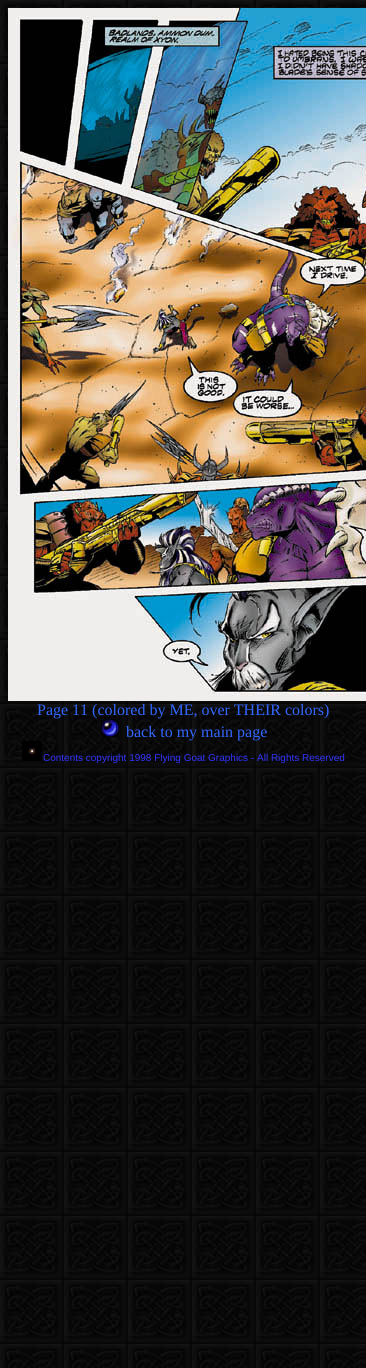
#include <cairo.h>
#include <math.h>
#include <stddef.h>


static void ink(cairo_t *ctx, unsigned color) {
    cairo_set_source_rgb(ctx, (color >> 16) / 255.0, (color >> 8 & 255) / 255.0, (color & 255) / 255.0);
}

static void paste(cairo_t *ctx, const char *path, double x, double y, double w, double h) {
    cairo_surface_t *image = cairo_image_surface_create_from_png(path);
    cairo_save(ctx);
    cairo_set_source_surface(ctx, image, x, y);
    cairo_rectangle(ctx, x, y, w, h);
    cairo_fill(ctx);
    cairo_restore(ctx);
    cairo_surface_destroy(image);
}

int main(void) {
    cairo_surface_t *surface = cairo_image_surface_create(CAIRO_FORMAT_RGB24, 366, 1368);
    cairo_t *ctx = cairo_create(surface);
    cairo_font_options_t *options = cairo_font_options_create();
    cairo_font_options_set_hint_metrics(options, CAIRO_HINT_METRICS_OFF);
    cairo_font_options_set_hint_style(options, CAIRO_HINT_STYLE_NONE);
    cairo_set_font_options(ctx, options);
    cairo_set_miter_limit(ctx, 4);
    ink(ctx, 0xFFFFFF);
    cairo_paint(ctx);
    paste(ctx, "media/1.png", 0, 0, 366, 1368);
    paste(ctx, "media/2.png", 8, 8, 358, 693);
    cairo_select_font_face(ctx, "Liberation Serif", CAIRO_FONT_SLANT_NORMAL, CAIRO_FONT_WEIGHT_NORMAL);
    cairo_set_font_size(ctx, 16);
    ink(ctx, 0x3366FF);
    cairo_move_to(ctx, 37, 715);
    cairo_show_text(ctx, "Page 11 (colored by ME, over THEIR colors)");
    paste(ctx, "media/3.png", 101, 719, 18, 18);
    cairo_move_to(ctx, 126, 737);
    cairo_show_text(ctx, "back to my main page");
    paste(ctx, "media/4.png", 22, 741, 20, 20);
    cairo_select_font_face(ctx, "Liberation Sans", CAIRO_FONT_SLANT_NORMAL, CAIRO_FONT_WEIGHT_NORMAL);
    cairo_set_font_size(ctx, 10);
    ink(ctx, 0x3333FF);
    cairo_move_to(ctx, 43, 761);
    cairo_show_text(ctx, "Contents copyright 1998 Flying Goat Graphics - All Rights Reserved");
    cairo_surface_write_to_png(surface, "image.png");
    cairo_font_options_destroy(options);
    cairo_destroy(ctx);
    cairo_surface_destroy(surface);
    return 0;
}
